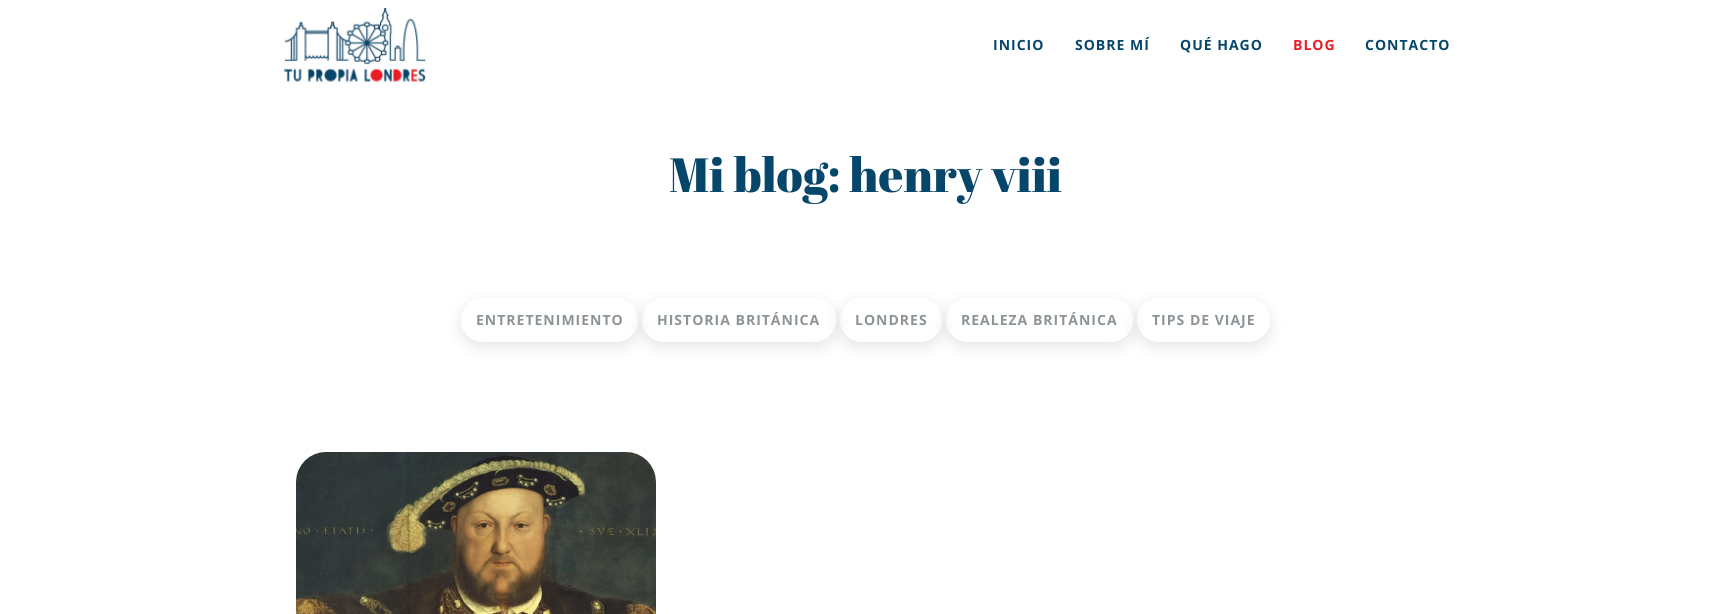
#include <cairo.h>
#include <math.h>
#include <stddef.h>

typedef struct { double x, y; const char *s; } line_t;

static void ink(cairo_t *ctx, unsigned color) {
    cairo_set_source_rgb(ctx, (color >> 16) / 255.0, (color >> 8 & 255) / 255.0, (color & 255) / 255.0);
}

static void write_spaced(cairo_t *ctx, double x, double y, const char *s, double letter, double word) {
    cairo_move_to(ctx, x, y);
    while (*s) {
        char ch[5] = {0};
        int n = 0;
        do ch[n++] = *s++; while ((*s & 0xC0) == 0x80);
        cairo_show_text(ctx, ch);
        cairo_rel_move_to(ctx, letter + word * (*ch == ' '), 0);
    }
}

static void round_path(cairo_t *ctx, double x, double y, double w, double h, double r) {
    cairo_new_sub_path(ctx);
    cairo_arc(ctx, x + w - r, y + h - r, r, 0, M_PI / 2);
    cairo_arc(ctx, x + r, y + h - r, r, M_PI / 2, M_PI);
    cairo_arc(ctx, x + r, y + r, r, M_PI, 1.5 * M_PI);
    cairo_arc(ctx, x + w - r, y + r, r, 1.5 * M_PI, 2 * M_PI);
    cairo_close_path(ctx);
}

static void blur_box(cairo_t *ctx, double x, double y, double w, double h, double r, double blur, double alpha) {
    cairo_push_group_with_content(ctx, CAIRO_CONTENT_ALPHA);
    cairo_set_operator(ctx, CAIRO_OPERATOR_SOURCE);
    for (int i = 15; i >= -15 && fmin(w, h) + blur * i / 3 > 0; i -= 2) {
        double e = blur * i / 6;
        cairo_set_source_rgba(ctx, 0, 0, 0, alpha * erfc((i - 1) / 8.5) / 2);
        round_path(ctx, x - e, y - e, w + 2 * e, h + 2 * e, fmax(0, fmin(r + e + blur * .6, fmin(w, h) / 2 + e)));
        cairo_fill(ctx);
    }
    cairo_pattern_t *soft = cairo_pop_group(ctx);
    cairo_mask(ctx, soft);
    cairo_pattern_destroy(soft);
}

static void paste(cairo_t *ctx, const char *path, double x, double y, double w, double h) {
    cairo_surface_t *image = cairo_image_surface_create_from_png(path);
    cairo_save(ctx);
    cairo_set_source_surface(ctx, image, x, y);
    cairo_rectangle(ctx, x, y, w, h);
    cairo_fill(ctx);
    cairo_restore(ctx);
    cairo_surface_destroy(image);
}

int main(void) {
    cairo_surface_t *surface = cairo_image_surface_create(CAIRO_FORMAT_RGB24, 1731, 614);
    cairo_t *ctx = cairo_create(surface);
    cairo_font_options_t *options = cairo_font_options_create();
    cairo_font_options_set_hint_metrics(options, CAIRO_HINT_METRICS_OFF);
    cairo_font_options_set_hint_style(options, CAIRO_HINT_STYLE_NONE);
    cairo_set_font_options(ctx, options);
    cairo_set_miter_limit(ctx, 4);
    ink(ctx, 0xFFFFFF);
    cairo_paint(ctx);
    paste(ctx, "media/1.png", 283, 7, 143, 76);
    cairo_select_font_face(ctx, "Open Sans", CAIRO_FONT_SLANT_NORMAL, CAIRO_FONT_WEIGHT_BOLD);
    cairo_set_font_size(ctx, 14);
    ink(ctx, 0x06466A);
    {
        static const line_t items[] = {
            {993, 50, "INICIO"},
            {1075, 50, "SOBRE MÍ"},
            {1180, 50, "QUÉ HAGO"},
        };
        for (size_t i = 0; i < sizeof items / sizeof *items; i++) {
            write_spaced(ctx, items[i].x, items[i].y, items[i].s, 1, 0);
        }
    }
    ink(ctx, 0xEB1C24);
    write_spaced(ctx, 1293, 50, "BLOG", 1, 0);
    ink(ctx, 0x06466A);
    write_spaced(ctx, 1365, 50, "CONTACTO", 1, 0);
    cairo_select_font_face(ctx, "Abril Fatface", CAIRO_FONT_SLANT_NORMAL, CAIRO_FONT_WEIGHT_NORMAL);
    cairo_set_font_size(ctx, 48);
    cairo_move_to(ctx, 669, 192);
    cairo_show_text(ctx, "Mi blog: henry viii");
    cairo_save(ctx);
    cairo_set_fill_rule(ctx, CAIRO_FILL_RULE_EVEN_ODD);
    cairo_new_path(ctx);
    cairo_move_to(ctx, 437, 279);
    cairo_line_to(ctx, 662, 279);
    cairo_line_to(ctx, 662, 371);
    cairo_line_to(ctx, 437, 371);
    cairo_close_path(ctx);
    cairo_move_to(ctx, 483, 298);
    cairo_line_to(ctx, 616, 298);
    cairo_curve_to(ctx, 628, 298, 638, 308, 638, 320);
    cairo_curve_to(ctx, 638, 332, 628, 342, 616, 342);
    cairo_line_to(ctx, 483, 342);
    cairo_curve_to(ctx, 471, 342, 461, 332, 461, 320);
    cairo_curve_to(ctx, 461, 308, 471, 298, 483, 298);
    cairo_close_path(ctx);
    cairo_clip(ctx);
    ink(ctx, 0x000000);
    blur_box(ctx, 461, 303, 177, 44, 22, 7.5, 0.1);
    cairo_restore(ctx);
    cairo_select_font_face(ctx, "Open Sans", CAIRO_FONT_SLANT_NORMAL, CAIRO_FONT_WEIGHT_BOLD);
    cairo_set_font_size(ctx, 14);
    ink(ctx, 0x8D9497);
    write_spaced(ctx, 476, 325, "ENTRETENIMIENTO", 1, 0);
    cairo_save(ctx);
    cairo_set_fill_rule(ctx, CAIRO_FILL_RULE_EVEN_ODD);
    cairo_new_path(ctx);
    cairo_move_to(ctx, 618, 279);
    cairo_line_to(ctx, 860, 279);
    cairo_line_to(ctx, 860, 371);
    cairo_line_to(ctx, 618, 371);
    cairo_close_path(ctx);
    cairo_move_to(ctx, 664, 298);
    cairo_line_to(ctx, 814, 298);
    cairo_curve_to(ctx, 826, 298, 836, 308, 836, 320);
    cairo_curve_to(ctx, 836, 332, 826, 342, 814, 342);
    cairo_line_to(ctx, 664, 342);
    cairo_curve_to(ctx, 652, 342, 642, 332, 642, 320);
    cairo_curve_to(ctx, 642, 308, 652, 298, 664, 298);
    cairo_close_path(ctx);
    cairo_clip(ctx);
    ink(ctx, 0x000000);
    blur_box(ctx, 642, 303, 194, 44, 22, 7.5, 0.1);
    cairo_restore(ctx);
    write_spaced(ctx, 657, 325, "HISTORIA BRITÁNICA", 1, 0);
    cairo_save(ctx);
    cairo_set_fill_rule(ctx, CAIRO_FILL_RULE_EVEN_ODD);
    cairo_new_path(ctx);
    cairo_move_to(ctx, 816, 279);
    cairo_line_to(ctx, 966, 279);
    cairo_line_to(ctx, 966, 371);
    cairo_line_to(ctx, 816, 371);
    cairo_close_path(ctx);
    cairo_move_to(ctx, 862, 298);
    cairo_line_to(ctx, 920, 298);
    cairo_curve_to(ctx, 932, 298, 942, 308, 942, 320);
    cairo_curve_to(ctx, 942, 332, 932, 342, 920, 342);
    cairo_line_to(ctx, 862, 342);
    cairo_curve_to(ctx, 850, 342, 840, 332, 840, 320);
    cairo_curve_to(ctx, 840, 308, 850, 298, 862, 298);
    cairo_close_path(ctx);
    cairo_clip(ctx);
    ink(ctx, 0x000000);
    blur_box(ctx, 840, 303, 102, 44, 22, 7.5, 0.1);
    cairo_restore(ctx);
    write_spaced(ctx, 855, 325, "LONDRES", 1, 0);
    cairo_save(ctx);
    cairo_set_fill_rule(ctx, CAIRO_FILL_RULE_EVEN_ODD);
    cairo_new_path(ctx);
    cairo_move_to(ctx, 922, 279);
    cairo_line_to(ctx, 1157, 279);
    cairo_line_to(ctx, 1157, 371);
    cairo_line_to(ctx, 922, 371);
    cairo_close_path(ctx);
    cairo_move_to(ctx, 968, 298);
    cairo_line_to(ctx, 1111, 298);
    cairo_curve_to(ctx, 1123, 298, 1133, 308, 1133, 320);
    cairo_curve_to(ctx, 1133, 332, 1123, 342, 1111, 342);
    cairo_line_to(ctx, 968, 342);
    cairo_curve_to(ctx, 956, 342, 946, 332, 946, 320);
    cairo_curve_to(ctx, 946, 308, 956, 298, 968, 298);
    cairo_close_path(ctx);
    cairo_clip(ctx);
    ink(ctx, 0x000000);
    blur_box(ctx, 946, 303, 187, 44, 22, 7.5, 0.1);
    cairo_restore(ctx);
    write_spaced(ctx, 961, 325, "REALEZA BRITÁNICA", 1, 0);
    cairo_save(ctx);
    cairo_set_fill_rule(ctx, CAIRO_FILL_RULE_EVEN_ODD);
    cairo_new_path(ctx);
    cairo_move_to(ctx, 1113, 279);
    cairo_line_to(ctx, 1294, 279);
    cairo_line_to(ctx, 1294, 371);
    cairo_line_to(ctx, 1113, 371);
    cairo_close_path(ctx);
    cairo_move_to(ctx, 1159, 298);
    cairo_line_to(ctx, 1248, 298);
    cairo_curve_to(ctx, 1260, 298, 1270, 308, 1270, 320);
    cairo_curve_to(ctx, 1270, 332, 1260, 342, 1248, 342);
    cairo_line_to(ctx, 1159, 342);
    cairo_curve_to(ctx, 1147, 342, 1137, 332, 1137, 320);
    cairo_curve_to(ctx, 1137, 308, 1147, 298, 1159, 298);
    cairo_close_path(ctx);
    cairo_clip(ctx);
    ink(ctx, 0x000000);
    blur_box(ctx, 1137, 303, 133, 44, 22, 7.5, 0.1);
    cairo_restore(ctx);
    write_spaced(ctx, 1152, 325, "TIPS DE VIAJE", 1, 0);
    paste(ctx, "media/2.png", 296, 452, 360, 162);
    cairo_surface_write_to_png(surface, "image.png");
    cairo_font_options_destroy(options);
    cairo_destroy(ctx);
    cairo_surface_destroy(surface);
    return 0;
}
